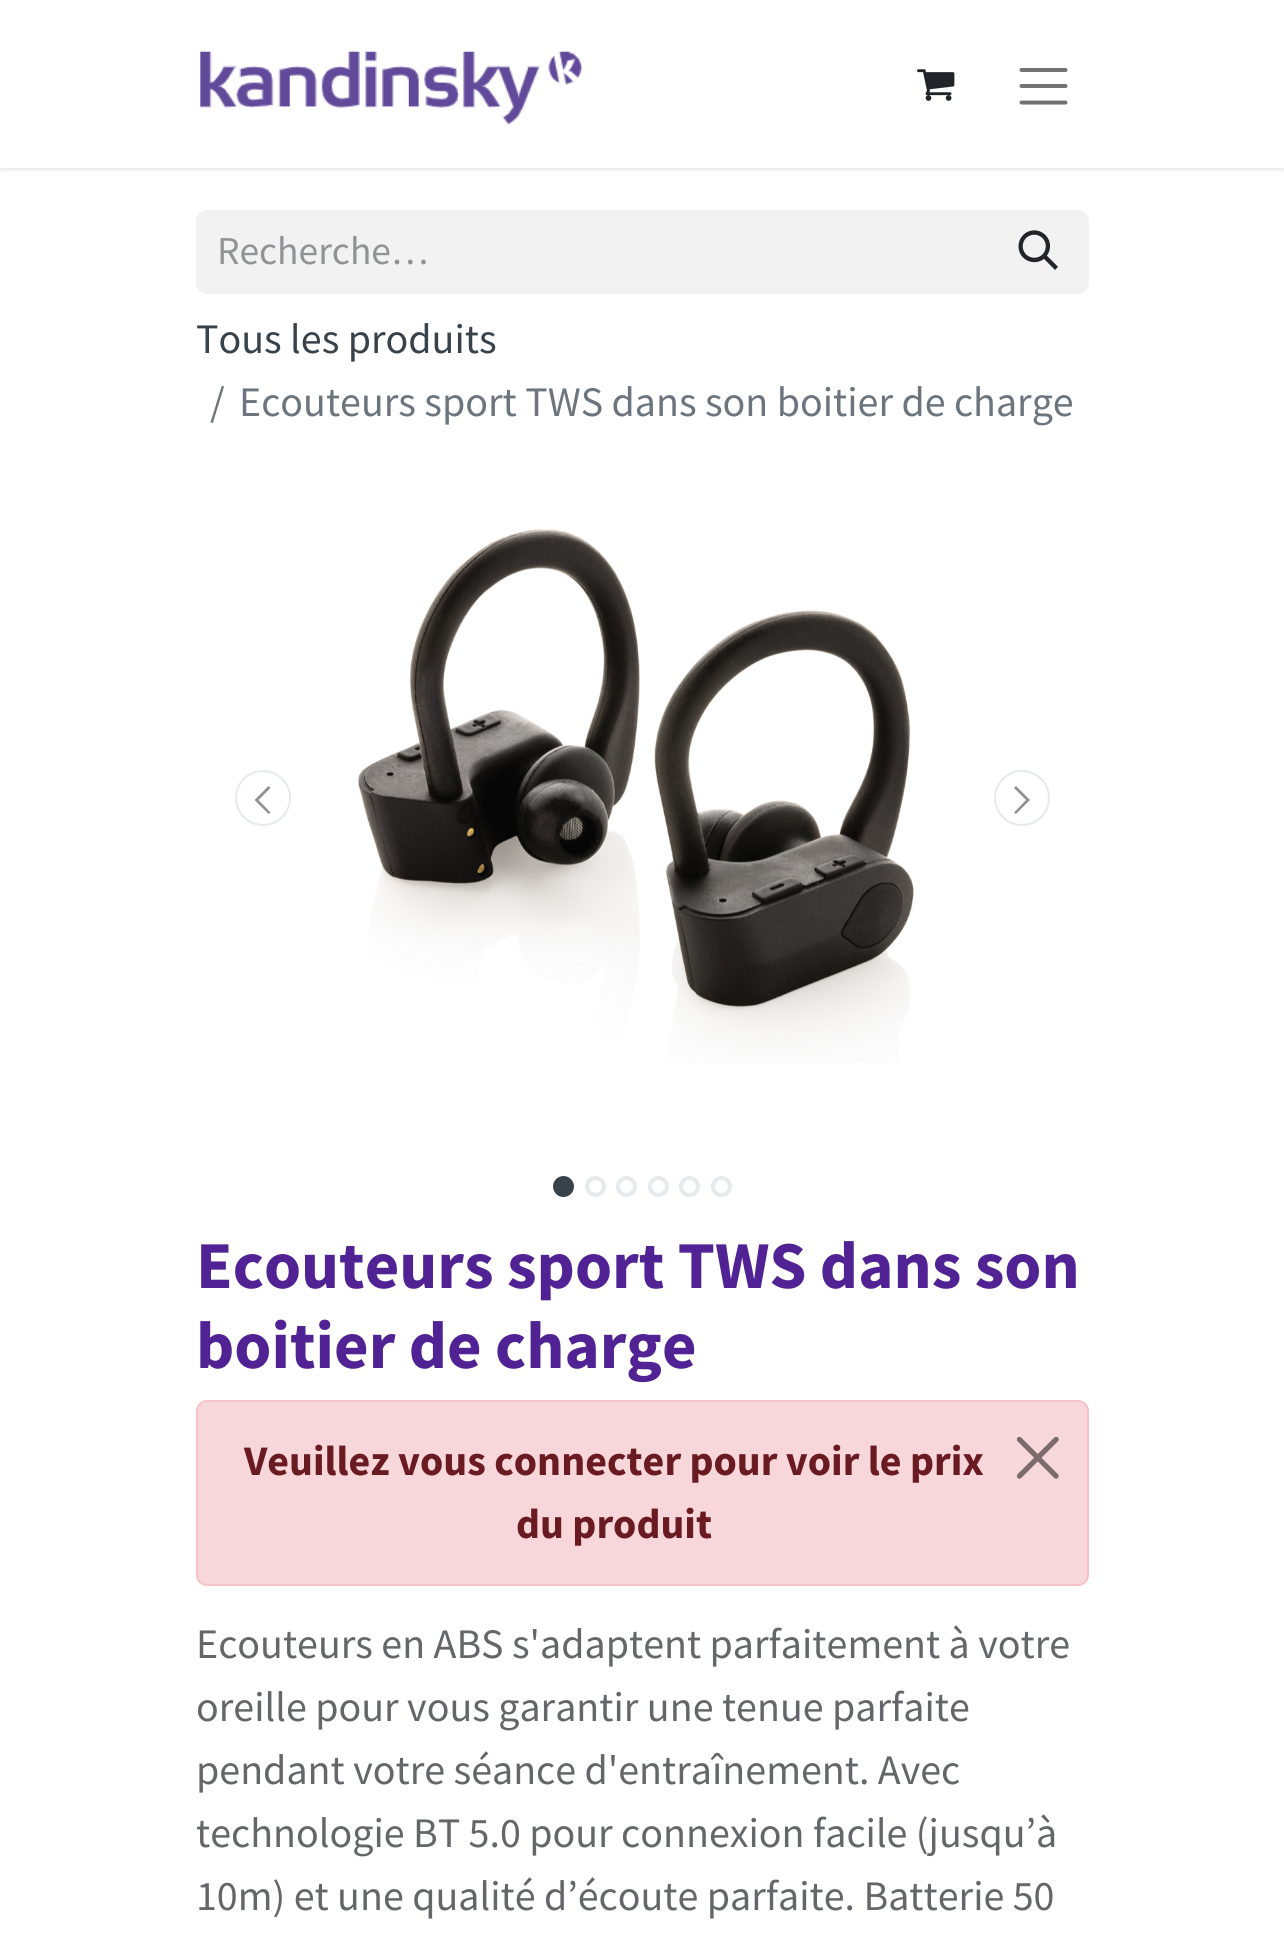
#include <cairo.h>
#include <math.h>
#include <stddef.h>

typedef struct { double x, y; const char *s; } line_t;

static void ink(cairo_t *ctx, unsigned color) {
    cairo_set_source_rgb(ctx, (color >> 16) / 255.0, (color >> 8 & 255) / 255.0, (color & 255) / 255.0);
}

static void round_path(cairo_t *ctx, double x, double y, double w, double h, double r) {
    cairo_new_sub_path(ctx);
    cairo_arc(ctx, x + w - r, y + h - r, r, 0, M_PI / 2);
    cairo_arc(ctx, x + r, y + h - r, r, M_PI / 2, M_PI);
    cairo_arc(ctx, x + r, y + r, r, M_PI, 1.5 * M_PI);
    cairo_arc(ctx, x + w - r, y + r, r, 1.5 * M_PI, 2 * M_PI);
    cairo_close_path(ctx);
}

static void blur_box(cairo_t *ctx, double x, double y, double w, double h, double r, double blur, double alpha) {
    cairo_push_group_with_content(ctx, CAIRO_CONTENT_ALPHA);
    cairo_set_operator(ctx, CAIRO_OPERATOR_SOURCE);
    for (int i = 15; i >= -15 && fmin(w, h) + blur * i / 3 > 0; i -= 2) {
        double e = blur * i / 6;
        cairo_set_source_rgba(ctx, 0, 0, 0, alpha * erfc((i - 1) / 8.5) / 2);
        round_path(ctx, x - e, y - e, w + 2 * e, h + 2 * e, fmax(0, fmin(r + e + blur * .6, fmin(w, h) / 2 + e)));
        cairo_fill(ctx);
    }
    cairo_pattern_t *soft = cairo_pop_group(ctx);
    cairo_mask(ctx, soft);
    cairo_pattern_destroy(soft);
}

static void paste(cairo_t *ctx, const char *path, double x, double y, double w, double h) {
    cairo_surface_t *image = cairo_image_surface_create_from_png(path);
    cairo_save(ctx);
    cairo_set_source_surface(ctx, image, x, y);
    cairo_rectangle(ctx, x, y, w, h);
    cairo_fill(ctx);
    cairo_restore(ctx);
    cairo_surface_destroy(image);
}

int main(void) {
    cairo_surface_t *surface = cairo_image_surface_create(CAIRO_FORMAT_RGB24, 1284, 1937);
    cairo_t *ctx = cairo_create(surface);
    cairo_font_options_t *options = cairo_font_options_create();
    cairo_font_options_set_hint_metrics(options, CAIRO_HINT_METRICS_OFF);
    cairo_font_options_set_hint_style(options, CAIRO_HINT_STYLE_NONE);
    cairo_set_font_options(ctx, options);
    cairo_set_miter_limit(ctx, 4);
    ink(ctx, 0xFFFFFF);
    cairo_paint(ctx);
    cairo_save(ctx);
    cairo_rectangle(ctx, 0, 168, 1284, 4);
    cairo_clip(ctx);
    ink(ctx, 0x000000);
    blur_box(ctx, 0, 2, 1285, 168, 0, 2.5, 0.1);
    cairo_restore(ctx);
    paste(ctx, "media/1.png", 200, 51, 383, 74);
    paste(ctx, "media/2.png", 917, 69, 38, 32);
    cairo_new_path(ctx);
    cairo_move_to(ctx, 1021.5, 70);
    cairo_line_to(ctx, 1065.5, 70);
    cairo_move_to(ctx, 1021.5, 86);
    cairo_line_to(ctx, 1065.5, 86);
    cairo_move_to(ctx, 1021.5, 102.5);
    cairo_line_to(ctx, 1065.5, 102.5);
    ink(ctx, 0x737373);
    cairo_set_line_width(ctx, 4);
    cairo_set_line_cap(ctx, CAIRO_LINE_CAP_ROUND);
    cairo_stroke(ctx);
    ink(ctx, 0xF3F2F2);
    cairo_new_path(ctx);
    cairo_move_to(ctx, 207, 210);
    cairo_line_to(ctx, 991, 210);
    cairo_line_to(ctx, 991, 294);
    cairo_line_to(ctx, 207, 294);
    cairo_curve_to(ctx, 201, 294, 196, 289, 196, 283);
    cairo_line_to(ctx, 196, 221);
    cairo_curve_to(ctx, 196, 215, 201, 210, 207, 210);
    cairo_close_path(ctx);
    cairo_fill(ctx);
    cairo_select_font_face(ctx, "Source Sans Pro", CAIRO_FONT_SLANT_NORMAL, CAIRO_FONT_WEIGHT_NORMAL);
    cairo_set_font_size(ctx, 39.5);
    ink(ctx, 0x909294);
    cairo_move_to(ctx, 217, 264);
    cairo_show_text(ctx, "Recherche…");
    ink(ctx, 0xF3F2F2);
    cairo_new_path(ctx);
    cairo_move_to(ctx, 990, 211);
    cairo_line_to(ctx, 1078, 211);
    cairo_curve_to(ctx, 1083.5, 211, 1088, 215.5, 1088, 221);
    cairo_line_to(ctx, 1088, 283);
    cairo_curve_to(ctx, 1088, 288.5, 1083.5, 293, 1078, 293);
    cairo_line_to(ctx, 990, 293);
    cairo_close_path(ctx);
    cairo_fill_preserve(ctx);
    cairo_set_line_width(ctx, 2);
    cairo_set_line_cap(ctx, CAIRO_LINE_CAP_BUTT);
    cairo_stroke(ctx);
    paste(ctx, "media/3.png", 1018, 230, 40, 40);
    cairo_set_font_size(ctx, 42);
    ink(ctx, 0x37424A);
    cairo_move_to(ctx, 196, 353);
    cairo_show_text(ctx, "Tous les produits");
    ink(ctx, 0x6C757D);
    cairo_move_to(ctx, 210, 416);
    cairo_show_text(ctx, "/");
    cairo_move_to(ctx, 239, 416);
    cairo_show_text(ctx, "Ecouteurs sport TWS dans son boitier de charge");
    cairo_new_path(ctx);
    cairo_arc(ctx, 263, 798, 27, 0, 2 * M_PI);
    ink(ctx, 0xE7EAED);
    cairo_stroke(ctx);
    ink(ctx, 0x909294);
    cairo_new_path(ctx);
    cairo_move_to(ctx, 254.5, 800);
    cairo_line_to(ctx, 268.5, 786);
    cairo_line_to(ctx, 270.5, 788);
    cairo_line_to(ctx, 258.5, 800);
    cairo_line_to(ctx, 270.5, 812.5);
    cairo_line_to(ctx, 268.5, 814);
    cairo_close_path(ctx);
    cairo_fill(ctx);
    paste(ctx, "media/4.png", 358, 529, 556, 535);
    cairo_arc(ctx, 1022, 798, 27, 0, 2 * M_PI);
    ink(ctx, 0xE7EAED);
    cairo_stroke(ctx);
    ink(ctx, 0x909294);
    cairo_new_path(ctx);
    cairo_move_to(ctx, 1030, 800);
    cairo_line_to(ctx, 1016, 814);
    cairo_line_to(ctx, 1014, 812.5);
    cairo_line_to(ctx, 1026, 800);
    cairo_line_to(ctx, 1014, 788);
    cairo_line_to(ctx, 1016, 786);
    cairo_close_path(ctx);
    cairo_fill(ctx);
    ink(ctx, 0x37424A);
    cairo_arc(ctx, 563.5, 1186.5, 8.5, 0, 2 * M_PI);
    cairo_fill_preserve(ctx);
    cairo_set_line_width(ctx, 4);
    cairo_stroke(ctx);
    cairo_arc(ctx, 595.5, 1186.5, 8.5, 0, 2 * M_PI);
    ink(ctx, 0xE7EAED);
    cairo_stroke(ctx);
    cairo_arc(ctx, 626.5, 1186.5, 8.5, 0, 2 * M_PI);
    cairo_stroke(ctx);
    cairo_arc(ctx, 658.5, 1186.5, 8.5, 0, 2 * M_PI);
    cairo_stroke(ctx);
    cairo_arc(ctx, 689.5, 1186.5, 8.5, 0, 2 * M_PI);
    cairo_stroke(ctx);
    cairo_arc(ctx, 721.5, 1186.5, 8.5, 0, 2 * M_PI);
    cairo_stroke(ctx);
    cairo_select_font_face(ctx, "Source Sans Pro", CAIRO_FONT_SLANT_NORMAL, CAIRO_FONT_WEIGHT_BOLD);
    cairo_set_font_size(ctx, 66.9);
    ink(ctx, 0x502294);
    cairo_move_to(ctx, 196, 1288);
    cairo_show_text(ctx, "Ecouteurs sport TWS dans son");
    cairo_move_to(ctx, 196, 1368);
    cairo_show_text(ctx, "boitier de charge");
    ink(ctx, 0xF8D7DA);
    round_path(ctx, 197, 1401, 891, 184, 10);
    cairo_fill_preserve(ctx);
    ink(ctx, 0xF5C2C7);
    cairo_set_line_width(ctx, 2);
    cairo_stroke(ctx);
    cairo_set_font_size(ctx, 42);
    ink(ctx, 0x6A1A21);
    cairo_move_to(ctx, 244, 1475);
    cairo_show_text(ctx, "Veuillez vous connecter pour voir le prix");
    paste(ctx, "media/5.png", 1017, 1437, 42, 42);
    cairo_move_to(ctx, 516, 1538);
    cairo_show_text(ctx, "du produit");
    cairo_select_font_face(ctx, "Source Sans Pro", CAIRO_FONT_SLANT_NORMAL, CAIRO_FONT_WEIGHT_NORMAL);
    ink(ctx, 0x646669);
    {
        static const line_t items[] = {
            {196, 1658, "Ecouteurs en ABS s'adaptent parfaitement à votre"},
            {196, 1721, "oreille pour vous garantir une tenue parfaite"},
            {196, 1784, "pendant votre séance d'entraînement. Avec"},
            {196, 1847, "technologie BT 5.0 pour connexion facile (jusqu’à"},
            {196, 1910, "10m) et une qualité d’écoute parfaite. Batterie 50"},
        };
        for (size_t i = 0; i < sizeof items / sizeof *items; i++) {
            cairo_move_to(ctx, items[i].x, items[i].y);
            cairo_show_text(ctx, items[i].s);
        }
    }
    cairo_surface_write_to_png(surface, "image.png");
    cairo_font_options_destroy(options);
    cairo_destroy(ctx);
    cairo_surface_destroy(surface);
    return 0;
}
